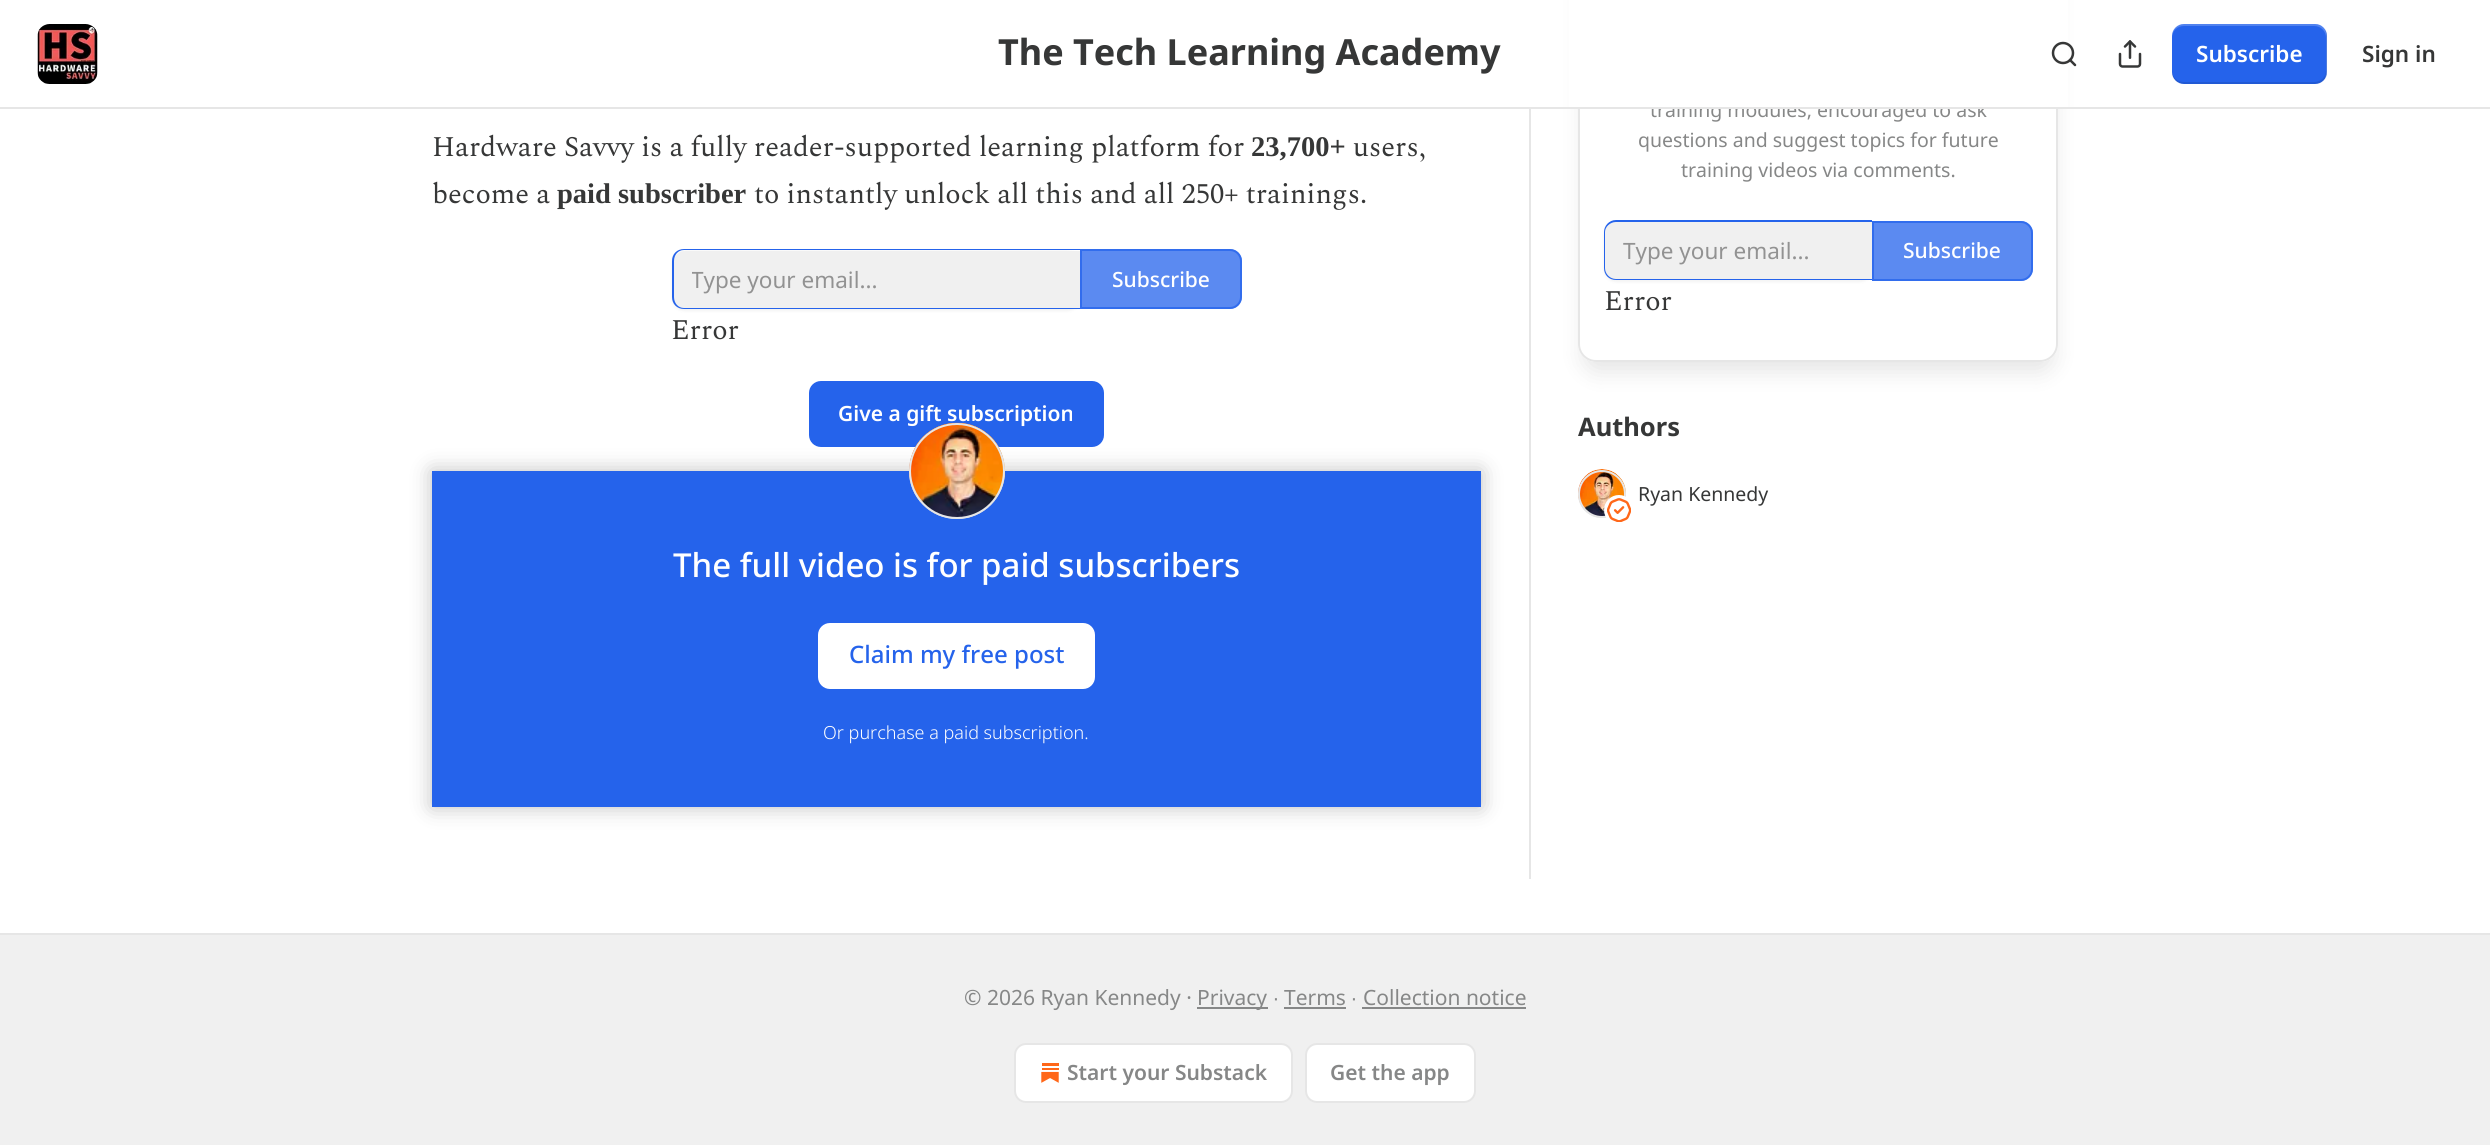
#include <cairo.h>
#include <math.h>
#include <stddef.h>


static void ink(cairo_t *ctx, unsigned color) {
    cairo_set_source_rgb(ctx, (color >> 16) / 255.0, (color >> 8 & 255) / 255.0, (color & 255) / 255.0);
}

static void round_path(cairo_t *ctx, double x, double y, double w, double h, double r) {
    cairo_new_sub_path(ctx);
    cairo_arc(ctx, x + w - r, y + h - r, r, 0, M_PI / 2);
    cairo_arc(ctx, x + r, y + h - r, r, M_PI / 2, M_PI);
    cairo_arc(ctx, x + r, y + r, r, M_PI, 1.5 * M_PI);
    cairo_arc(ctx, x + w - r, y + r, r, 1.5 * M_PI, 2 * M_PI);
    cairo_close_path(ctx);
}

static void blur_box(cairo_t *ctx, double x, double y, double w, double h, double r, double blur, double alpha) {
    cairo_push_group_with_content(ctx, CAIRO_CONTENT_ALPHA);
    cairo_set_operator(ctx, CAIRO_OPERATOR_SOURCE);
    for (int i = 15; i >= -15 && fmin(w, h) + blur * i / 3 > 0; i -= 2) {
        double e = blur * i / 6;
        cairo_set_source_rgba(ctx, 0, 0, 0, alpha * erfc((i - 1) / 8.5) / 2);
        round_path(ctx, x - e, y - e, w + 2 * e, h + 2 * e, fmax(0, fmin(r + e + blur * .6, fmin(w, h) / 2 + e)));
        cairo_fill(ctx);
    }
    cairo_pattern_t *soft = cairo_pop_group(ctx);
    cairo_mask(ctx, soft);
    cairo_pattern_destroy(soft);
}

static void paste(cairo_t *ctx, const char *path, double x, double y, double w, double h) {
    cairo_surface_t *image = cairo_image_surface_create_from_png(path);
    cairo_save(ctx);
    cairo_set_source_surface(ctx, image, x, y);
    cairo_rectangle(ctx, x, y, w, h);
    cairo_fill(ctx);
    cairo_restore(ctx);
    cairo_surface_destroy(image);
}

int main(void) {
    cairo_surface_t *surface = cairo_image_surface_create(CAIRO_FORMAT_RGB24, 2490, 1145);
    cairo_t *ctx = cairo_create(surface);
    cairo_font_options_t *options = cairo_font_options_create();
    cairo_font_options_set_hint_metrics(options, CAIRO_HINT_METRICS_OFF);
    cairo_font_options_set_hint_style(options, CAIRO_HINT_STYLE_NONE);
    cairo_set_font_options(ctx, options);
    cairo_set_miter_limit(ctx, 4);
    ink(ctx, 0xFFFFFF);
    cairo_paint(ctx);
    cairo_save(ctx);
    cairo_set_fill_rule(ctx, CAIRO_FILL_RULE_EVEN_ODD);
    cairo_new_path(ctx);
    cairo_move_to(ctx, 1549, 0);
    cairo_line_to(ctx, 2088, 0);
    cairo_line_to(ctx, 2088, 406);
    cairo_line_to(ctx, 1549, 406);
    cairo_close_path(ctx);
    cairo_move_to(ctx, 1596, -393);
    cairo_line_to(ctx, 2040, -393);
    cairo_curve_to(ctx, 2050, -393, 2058, -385, 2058, -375);
    cairo_line_to(ctx, 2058, 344);
    cairo_curve_to(ctx, 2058, 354, 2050, 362, 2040, 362);
    cairo_line_to(ctx, 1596, 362);
    cairo_curve_to(ctx, 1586, 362, 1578, 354, 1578, 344);
    cairo_line_to(ctx, 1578, -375);
    cairo_curve_to(ctx, 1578, -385, 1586, -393, 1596, -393);
    cairo_close_path(ctx);
    cairo_clip(ctx);
    ink(ctx, 0x000000);
    blur_box(ctx, 1583, -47, 471, 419, 14, 11, 0.1);
    cairo_restore(ctx);
    round_path(ctx, 1579, -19, 478, 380, 17);
    ink(ctx, 0xE6E6E6);
    cairo_stroke(ctx);
    cairo_select_font_face(ctx, "Noto Sans", CAIRO_FONT_SLANT_NORMAL, CAIRO_FONT_WEIGHT_NORMAL);
    cairo_set_font_size(ctx, 19.5);
    ink(ctx, 0x868787);
    cairo_move_to(ctx, 1650, 117);
    cairo_show_text(ctx, "training modules, encouraged to ask");
    ink(ctx, 0xFFFFFF);
    cairo_rectangle(ctx, 1569, 0, 499, 107);
    cairo_fill(ctx);
    ink(ctx, 0xE6E6E6);
    cairo_rectangle(ctx, 0, 107, 2490, 2);
    cairo_fill(ctx);
    paste(ctx, "media/1.png", 37, 24, 61, 60);
    cairo_select_font_face(ctx, "Noto Sans", CAIRO_FONT_SLANT_NORMAL, CAIRO_FONT_WEIGHT_BOLD);
    cairo_set_font_size(ctx, 36);
    ink(ctx, 0x363737);
    cairo_move_to(ctx, 998, 65);
    cairo_show_text(ctx, "The Tech Learning Academy");
    cairo_new_path(ctx);
    cairo_arc(ctx, 2063, 53, 10, 0, 2 * M_PI);
    cairo_set_line_width(ctx, 2.5);
    cairo_stroke(ctx);
    cairo_new_path(ctx);
    cairo_move_to(ctx, 2075, 65);
    cairo_line_to(ctx, 2070, 60);
    cairo_set_line_cap(ctx, CAIRO_LINE_CAP_ROUND);
    cairo_set_line_join(ctx, CAIRO_LINE_JOIN_ROUND);
    cairo_stroke(ctx);
    paste(ctx, "media/2.png", 2118, 40, 24, 28);
    ink(ctx, 0x2563EB);
    round_path(ctx, 2172, 24, 155, 60, 12);
    cairo_fill(ctx);
    cairo_set_source_rgba(ctx, 0, 0, 0, 0.1);
    cairo_new_path(ctx);
    cairo_move_to(ctx, 2172, 70);
    cairo_line_to(ctx, 2172, 72);
    cairo_curve_to(ctx, 2172, 79, 2177, 84, 2184, 84);
    cairo_line_to(ctx, 2315, 84);
    cairo_curve_to(ctx, 2322, 84, 2327, 79, 2327, 72);
    cairo_line_to(ctx, 2327, 36);
    cairo_curve_to(ctx, 2327, 34, 2326, 31, 2325, 29);
    cairo_line_to(ctx, 2326, 34);
    cairo_line_to(ctx, 2326, 70);
    cairo_curve_to(ctx, 2326, 77, 2321, 82, 2314, 82);
    cairo_line_to(ctx, 2184, 82);
    cairo_curve_to(ctx, 2177, 82, 2172, 77, 2172, 70);
    cairo_close_path(ctx);
    cairo_fill(ctx);
    cairo_set_source_rgba(ctx, 1, 1, 1, 0.2);
    cairo_new_path(ctx);
    cairo_move_to(ctx, 2184, 26);
    cairo_line_to(ctx, 2314, 26);
    cairo_curve_to(ctx, 2321, 26, 2326, 31, 2326, 38);
    cairo_line_to(ctx, 2326, 74);
    cairo_line_to(ctx, 2325, 79);
    cairo_curve_to(ctx, 2326, 77, 2327, 74, 2327, 72);
    cairo_line_to(ctx, 2327, 36);
    cairo_curve_to(ctx, 2327, 29, 2322, 24, 2315, 24);
    cairo_line_to(ctx, 2184, 24);
    cairo_curve_to(ctx, 2177, 24, 2172, 29, 2172, 36);
    cairo_line_to(ctx, 2172, 38);
    cairo_curve_to(ctx, 2172, 31, 2177, 26, 2184, 26);
    cairo_close_path(ctx);
    cairo_fill(ctx);
    cairo_select_font_face(ctx, "Noto Sans SemiBold", CAIRO_FONT_SLANT_NORMAL, CAIRO_FONT_WEIGHT_NORMAL);
    cairo_set_font_size(ctx, 22.5);
    ink(ctx, 0xFFFFFF);
    cairo_move_to(ctx, 2196, 62);
    cairo_show_text(ctx, "Subscribe");
    ink(ctx, 0x363737);
    cairo_move_to(ctx, 2362, 62);
    cairo_show_text(ctx, "Sign in");
    cairo_select_font_face(ctx, "Spectral", CAIRO_FONT_SLANT_NORMAL, CAIRO_FONT_WEIGHT_NORMAL);
    cairo_set_font_size(ctx, 28.5);
    cairo_move_to(ctx, 432, 156);
    cairo_show_text(ctx, "Hardware Savvy is a fully reader-supported learning platform for");
    cairo_select_font_face(ctx, "Liberation Serif", CAIRO_FONT_SLANT_NORMAL, CAIRO_FONT_WEIGHT_BOLD);
    cairo_move_to(ctx, 1251, 156);
    cairo_show_text(ctx, "23,700+");
    cairo_select_font_face(ctx, "Spectral", CAIRO_FONT_SLANT_NORMAL, CAIRO_FONT_WEIGHT_NORMAL);
    cairo_move_to(ctx, 1353, 156);
    cairo_show_text(ctx, "users,");
    cairo_move_to(ctx, 432, 203);
    cairo_show_text(ctx, "become a");
    cairo_select_font_face(ctx, "Liberation Serif", CAIRO_FONT_SLANT_NORMAL, CAIRO_FONT_WEIGHT_BOLD);
    cairo_move_to(ctx, 557, 203);
    cairo_show_text(ctx, "paid subscriber");
    cairo_select_font_face(ctx, "Spectral", CAIRO_FONT_SLANT_NORMAL, CAIRO_FONT_WEIGHT_NORMAL);
    cairo_move_to(ctx, 754, 203);
    cairo_show_text(ctx, "to instantly unlock all this and all 250+ trainings.");
    ink(ctx, 0x000000);
    blur_box(ctx, 672, 251, 408, 60, 12, 1.5, 0.05);
    ink(ctx, 0xF0F0F0);
    cairo_new_path(ctx);
    cairo_move_to(ctx, 685, 251);
    cairo_line_to(ctx, 1080, 251);
    cairo_line_to(ctx, 1080, 308);
    cairo_line_to(ctx, 685, 308);
    cairo_curve_to(ctx, 679, 308, 674, 303, 674, 297);
    cairo_line_to(ctx, 674, 262);
    cairo_curve_to(ctx, 674, 256, 679, 251, 685, 251);
    cairo_close_path(ctx);
    cairo_fill(ctx);
    ink(ctx, 0x2563EB);
    cairo_set_fill_rule(ctx, CAIRO_FILL_RULE_EVEN_ODD);
    cairo_new_path(ctx);
    cairo_move_to(ctx, 684, 249);
    cairo_line_to(ctx, 1080, 249);
    cairo_line_to(ctx, 1080, 309);
    cairo_line_to(ctx, 684, 309);
    cairo_curve_to(ctx, 677, 309, 672, 304, 672, 297);
    cairo_line_to(ctx, 672, 261);
    cairo_curve_to(ctx, 672, 254, 677, 249, 684, 249);
    cairo_close_path(ctx);
    cairo_move_to(ctx, 684, 250);
    cairo_line_to(ctx, 1080, 250);
    cairo_line_to(ctx, 1080, 308);
    cairo_line_to(ctx, 684, 308);
    cairo_curve_to(ctx, 678, 308, 674, 303, 674, 297);
    cairo_line_to(ctx, 674, 261);
    cairo_curve_to(ctx, 674, 255, 678, 250, 684, 250);
    cairo_close_path(ctx);
    cairo_fill(ctx);
    cairo_save(ctx);
    cairo_set_fill_rule(ctx, CAIRO_FILL_RULE_WINDING);
    cairo_rectangle(ctx, 692, 264, 370, 30);
    cairo_clip(ctx);
    cairo_select_font_face(ctx, "Noto Sans", CAIRO_FONT_SLANT_NORMAL, CAIRO_FONT_WEIGHT_NORMAL);
    cairo_set_font_size(ctx, 22.5);
    ink(ctx, 0x929292);
    cairo_move_to(ctx, 691, 288);
    cairo_show_text(ctx, "Type your email...");
    cairo_restore(ctx);
    cairo_set_source_rgba(ctx, 0.145, 0.388, 0.922, 0.75);
    cairo_new_path(ctx);
    cairo_move_to(ctx, 1080, 249);
    cairo_line_to(ctx, 1230, 249);
    cairo_curve_to(ctx, 1236.5, 249, 1242, 254.5, 1242, 261);
    cairo_line_to(ctx, 1242, 297);
    cairo_curve_to(ctx, 1242, 303.5, 1236.5, 309, 1230, 309);
    cairo_line_to(ctx, 1080, 309);
    cairo_close_path(ctx);
    cairo_fill(ctx);
    cairo_new_path(ctx);
    cairo_move_to(ctx, 1081, 250);
    cairo_line_to(ctx, 1230, 250);
    cairo_curve_to(ctx, 1236, 250, 1241, 255, 1241, 261);
    cairo_line_to(ctx, 1241, 297);
    cairo_curve_to(ctx, 1241, 303, 1236, 308, 1230, 308);
    cairo_line_to(ctx, 1081, 308);
    cairo_close_path(ctx);
    cairo_set_line_width(ctx, 2);
    cairo_set_line_cap(ctx, CAIRO_LINE_CAP_BUTT);
    cairo_set_line_join(ctx, CAIRO_LINE_JOIN_MITER);
    cairo_stroke(ctx);
    cairo_select_font_face(ctx, "Noto Sans Medium", CAIRO_FONT_SLANT_NORMAL, CAIRO_FONT_WEIGHT_NORMAL);
    cairo_set_font_size(ctx, 21);
    ink(ctx, 0xFFFFFF);
    cairo_move_to(ctx, 1112, 287);
    cairo_show_text(ctx, "Subscribe");
    cairo_select_font_face(ctx, "Spectral", CAIRO_FONT_SLANT_NORMAL, CAIRO_FONT_WEIGHT_NORMAL);
    cairo_set_font_size(ctx, 28.5);
    ink(ctx, 0x363737);
    cairo_move_to(ctx, 671, 339);
    cairo_show_text(ctx, "Error");
    ink(ctx, 0x2563EB);
    round_path(ctx, 809, 381, 295, 66, 12);
    cairo_fill(ctx);
    cairo_select_font_face(ctx, "Noto Sans SemiBold", CAIRO_FONT_SLANT_NORMAL, CAIRO_FONT_WEIGHT_NORMAL);
    cairo_set_font_size(ctx, 21);
    ink(ctx, 0xFFFFFF);
    cairo_move_to(ctx, 838, 421);
    cairo_show_text(ctx, "Give a gift subscription");
    ink(ctx, 0x2563EB);
    cairo_rectangle(ctx, 432, 471, 1049, 336);
    cairo_fill(ctx);
    ink(ctx, 0xFFFFFF);
    round_path(ctx, 819, 624, 275, 64, 11);
    cairo_fill_preserve(ctx);
    cairo_stroke(ctx);
    cairo_save(ctx);
    cairo_new_path(ctx);
    cairo_move_to(ctx, 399, 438);
    cairo_line_to(ctx, 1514, 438);
    cairo_line_to(ctx, 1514, 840);
    cairo_line_to(ctx, 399, 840);
    cairo_close_path(ctx);
    cairo_move_to(ctx, 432, 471);
    cairo_line_to(ctx, 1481, 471);
    cairo_line_to(ctx, 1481, 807);
    cairo_line_to(ctx, 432, 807);
    cairo_close_path(ctx);
    cairo_clip(ctx);
    ink(ctx, 0x000000);
    blur_box(ctx, 432, 471, 1049, 336, 0, 10.5, 0.25);
    cairo_restore(ctx);
    cairo_arc(ctx, 957, 471, 47, 0, 2 * M_PI);
    ink(ctx, 0xE6E6E6);
    cairo_stroke(ctx);
    paste(ctx, "media/3.png", 909, 422, 96, 97);
    cairo_arc(ctx, 957, 471, 47, 0, 2 * M_PI);
    cairo_stroke(ctx);
    cairo_select_font_face(ctx, "Noto Sans Medium", CAIRO_FONT_SLANT_NORMAL, CAIRO_FONT_WEIGHT_NORMAL);
    cairo_set_font_size(ctx, 33);
    ink(ctx, 0xFFFFFF);
    cairo_move_to(ctx, 673, 577);
    cairo_show_text(ctx, "The full video is for paid subscribers");
    cairo_set_font_size(ctx, 24);
    ink(ctx, 0x2563EB);
    cairo_move_to(ctx, 849, 663);
    cairo_show_text(ctx, "Claim my free post");
    cairo_select_font_face(ctx, "Noto Sans Light", CAIRO_FONT_SLANT_NORMAL, CAIRO_FONT_WEIGHT_NORMAL);
    cairo_set_font_size(ctx, 18);
    ink(ctx, 0xFFFFFF);
    cairo_move_to(ctx, 823, 739);
    cairo_show_text(ctx, "Or purchase a paid subscription.");
    ink(ctx, 0xE6E6E6);
    cairo_rectangle(ctx, 1529, 109, 2, 770);
    cairo_fill(ctx);
    cairo_select_font_face(ctx, "Noto Sans", CAIRO_FONT_SLANT_NORMAL, CAIRO_FONT_WEIGHT_NORMAL);
    cairo_set_font_size(ctx, 19.5);
    ink(ctx, 0x868787);
    cairo_move_to(ctx, 1638, 147);
    cairo_show_text(ctx, "questions and suggest topics for future");
    cairo_move_to(ctx, 1681, 177);
    cairo_show_text(ctx, "training videos via comments.");
    ink(ctx, 0x000000);
    blur_box(ctx, 1604, 222, 268, 60, 12, 1.5, 0.05);
    ink(ctx, 0xF0F0F0);
    cairo_new_path(ctx);
    cairo_move_to(ctx, 1616, 222);
    cairo_line_to(ctx, 1872, 222);
    cairo_line_to(ctx, 1872, 279);
    cairo_line_to(ctx, 1616, 279);
    cairo_curve_to(ctx, 1610, 279, 1605, 274, 1605, 268);
    cairo_line_to(ctx, 1605, 233);
    cairo_curve_to(ctx, 1605, 227, 1610, 222, 1616, 222);
    cairo_close_path(ctx);
    cairo_fill(ctx);
    ink(ctx, 0x2563EB);
    cairo_new_path(ctx);
    cairo_move_to(ctx, 1616, 220);
    cairo_line_to(ctx, 1872, 220);
    cairo_line_to(ctx, 1872, 280);
    cairo_line_to(ctx, 1616, 280);
    cairo_curve_to(ctx, 1609, 280, 1604, 275, 1604, 268);
    cairo_line_to(ctx, 1604, 232);
    cairo_curve_to(ctx, 1604, 226, 1609, 220, 1616, 220);
    cairo_close_path(ctx);
    cairo_move_to(ctx, 1616, 222);
    cairo_line_to(ctx, 1872, 222);
    cairo_line_to(ctx, 1872, 279);
    cairo_line_to(ctx, 1616, 279);
    cairo_curve_to(ctx, 1610, 279, 1605, 274, 1605, 268);
    cairo_line_to(ctx, 1605, 232);
    cairo_curve_to(ctx, 1605, 227, 1610, 222, 1616, 222);
    cairo_close_path(ctx);
    cairo_fill(ctx);
    cairo_set_font_size(ctx, 22.5);
    ink(ctx, 0x929292);
    cairo_move_to(ctx, 1623, 259);
    cairo_show_text(ctx, "Type your email...");
    cairo_set_source_rgba(ctx, 0.145, 0.388, 0.922, 0.75);
    cairo_new_path(ctx);
    cairo_move_to(ctx, 1872, 221);
    cairo_line_to(ctx, 2021, 221);
    cairo_curve_to(ctx, 2027.5, 221, 2033, 226.5, 2033, 233);
    cairo_line_to(ctx, 2033, 269);
    cairo_curve_to(ctx, 2033, 275.5, 2027.5, 281, 2021, 281);
    cairo_line_to(ctx, 1872, 281);
    cairo_close_path(ctx);
    cairo_fill(ctx);
    cairo_new_path(ctx);
    cairo_move_to(ctx, 1873, 222);
    cairo_line_to(ctx, 2021, 222);
    cairo_curve_to(ctx, 2027, 222, 2032, 227, 2032, 233);
    cairo_line_to(ctx, 2032, 269);
    cairo_curve_to(ctx, 2032, 275, 2027, 280, 2021, 280);
    cairo_line_to(ctx, 1873, 280);
    cairo_close_path(ctx);
    cairo_stroke(ctx);
    cairo_select_font_face(ctx, "Noto Sans Medium", CAIRO_FONT_SLANT_NORMAL, CAIRO_FONT_WEIGHT_NORMAL);
    cairo_set_font_size(ctx, 21);
    ink(ctx, 0xFFFFFF);
    cairo_move_to(ctx, 1903, 258);
    cairo_show_text(ctx, "Subscribe");
    cairo_select_font_face(ctx, "Spectral", CAIRO_FONT_SLANT_NORMAL, CAIRO_FONT_WEIGHT_NORMAL);
    cairo_set_font_size(ctx, 28.5);
    ink(ctx, 0x363737);
    cairo_move_to(ctx, 1604, 310);
    cairo_show_text(ctx, "Error");
    cairo_select_font_face(ctx, "Noto Sans", CAIRO_FONT_SLANT_NORMAL, CAIRO_FONT_WEIGHT_BOLD);
    cairo_set_font_size(ctx, 25.5);
    cairo_move_to(ctx, 1578, 436);
    cairo_show_text(ctx, "Authors");
    cairo_new_path(ctx);
    cairo_arc(ctx, 1602, 494, 23, 0, 2 * M_PI);
    ink(ctx, 0xE6E6E6);
    cairo_stroke(ctx);
    paste(ctx, "media/4.png", 1578, 469, 48, 47);
    cairo_arc(ctx, 1602, 494, 23, 0, 2 * M_PI);
    cairo_stroke(ctx);
    ink(ctx, 0xFFFFFF);
    cairo_arc(ctx, 1619, 510, 13.5, 0, 2 * M_PI);
    cairo_fill_preserve(ctx);
    cairo_set_line_width(ctx, 3);
    cairo_stroke(ctx);
    paste(ctx, "media/5.png", 1607, 498, 24, 24);
    cairo_select_font_face(ctx, "Noto Sans", CAIRO_FONT_SLANT_NORMAL, CAIRO_FONT_WEIGHT_NORMAL);
    cairo_set_font_size(ctx, 19.5);
    ink(ctx, 0x363737);
    cairo_move_to(ctx, 1638, 501);
    cairo_show_text(ctx, "Ryan Kennedy");
    ink(ctx, 0xF0F0F0);
    cairo_rectangle(ctx, 0, 935, 2490, 210);
    cairo_fill(ctx);
    ink(ctx, 0xE6E6E6);
    cairo_rectangle(ctx, 0, 933, 2490, 2);
    cairo_fill(ctx);
    cairo_set_font_size(ctx, 21);
    ink(ctx, 0x868787);
    cairo_move_to(ctx, 964, 1005);
    cairo_show_text(ctx, "© 2026 Ryan Kennedy ·");
    cairo_rectangle(ctx, 1197, 1007, 71, 2);
    cairo_fill(ctx);
    cairo_move_to(ctx, 1197, 1005);
    cairo_show_text(ctx, "Privacy");
    cairo_select_font_face(ctx, "Liberation Sans", CAIRO_FONT_SLANT_NORMAL, CAIRO_FONT_WEIGHT_NORMAL);
    cairo_move_to(ctx, 1273, 1005);
    cairo_show_text(ctx, "∙");
    cairo_select_font_face(ctx, "Noto Sans", CAIRO_FONT_SLANT_NORMAL, CAIRO_FONT_WEIGHT_NORMAL);
    cairo_move_to(ctx, 1284, 1005);
    cairo_show_text(ctx, "Terms");
    cairo_rectangle(ctx, 1284, 1007, 62, 2);
    cairo_fill(ctx);
    cairo_select_font_face(ctx, "Liberation Sans", CAIRO_FONT_SLANT_NORMAL, CAIRO_FONT_WEIGHT_NORMAL);
    cairo_move_to(ctx, 1351, 1005);
    cairo_show_text(ctx, "∙");
    cairo_select_font_face(ctx, "Noto Sans", CAIRO_FONT_SLANT_NORMAL, CAIRO_FONT_WEIGHT_NORMAL);
    cairo_move_to(ctx, 1363, 1005);
    cairo_show_text(ctx, "Collection notice");
    cairo_rectangle(ctx, 1362, 1007, 164, 2);
    cairo_fill(ctx);
    ink(ctx, 0xFFFFFF);
    round_path(ctx, 1015, 1044, 277, 58, 11);
    cairo_fill_preserve(ctx);
    ink(ctx, 0xE6E6E6);
    cairo_set_line_width(ctx, 2);
    cairo_stroke(ctx);
    paste(ctx, "media/6.png", 1041, 1063, 18, 20);
    cairo_select_font_face(ctx, "Noto Sans SemiBold", CAIRO_FONT_SLANT_NORMAL, CAIRO_FONT_WEIGHT_NORMAL);
    ink(ctx, 0x868787);
    cairo_move_to(ctx, 1067, 1080);
    cairo_show_text(ctx, "Start your Substack");
    ink(ctx, 0xFFFFFF);
    round_path(ctx, 1306, 1044, 169, 58, 11);
    cairo_fill_preserve(ctx);
    ink(ctx, 0xE6E6E6);
    cairo_stroke(ctx);
    ink(ctx, 0x868787);
    cairo_move_to(ctx, 1330, 1080);
    cairo_show_text(ctx, "Get the app");
    cairo_surface_write_to_png(surface, "image.png");
    cairo_font_options_destroy(options);
    cairo_destroy(ctx);
    cairo_surface_destroy(surface);
    return 0;
}
